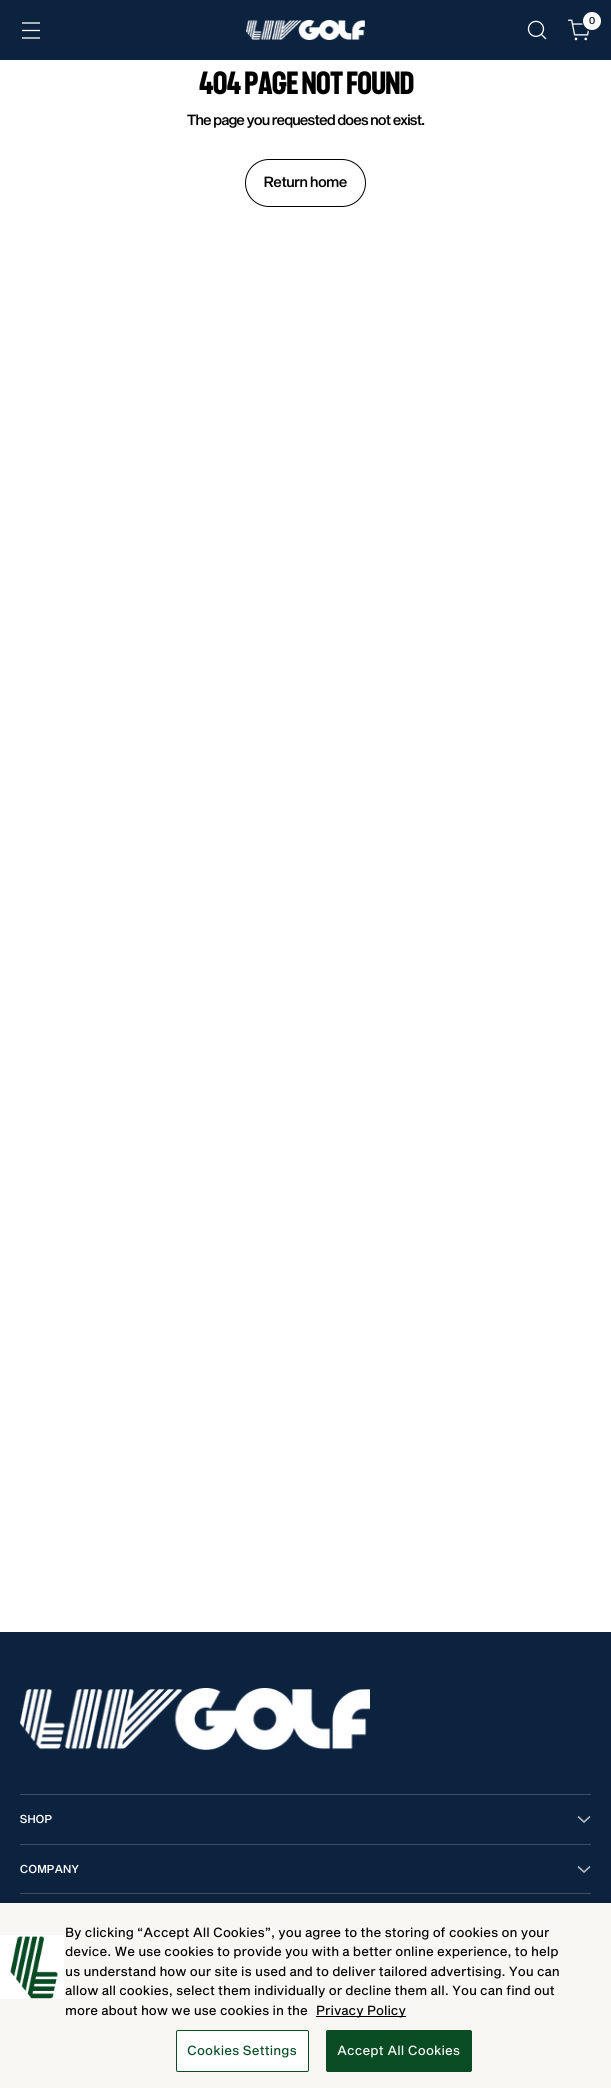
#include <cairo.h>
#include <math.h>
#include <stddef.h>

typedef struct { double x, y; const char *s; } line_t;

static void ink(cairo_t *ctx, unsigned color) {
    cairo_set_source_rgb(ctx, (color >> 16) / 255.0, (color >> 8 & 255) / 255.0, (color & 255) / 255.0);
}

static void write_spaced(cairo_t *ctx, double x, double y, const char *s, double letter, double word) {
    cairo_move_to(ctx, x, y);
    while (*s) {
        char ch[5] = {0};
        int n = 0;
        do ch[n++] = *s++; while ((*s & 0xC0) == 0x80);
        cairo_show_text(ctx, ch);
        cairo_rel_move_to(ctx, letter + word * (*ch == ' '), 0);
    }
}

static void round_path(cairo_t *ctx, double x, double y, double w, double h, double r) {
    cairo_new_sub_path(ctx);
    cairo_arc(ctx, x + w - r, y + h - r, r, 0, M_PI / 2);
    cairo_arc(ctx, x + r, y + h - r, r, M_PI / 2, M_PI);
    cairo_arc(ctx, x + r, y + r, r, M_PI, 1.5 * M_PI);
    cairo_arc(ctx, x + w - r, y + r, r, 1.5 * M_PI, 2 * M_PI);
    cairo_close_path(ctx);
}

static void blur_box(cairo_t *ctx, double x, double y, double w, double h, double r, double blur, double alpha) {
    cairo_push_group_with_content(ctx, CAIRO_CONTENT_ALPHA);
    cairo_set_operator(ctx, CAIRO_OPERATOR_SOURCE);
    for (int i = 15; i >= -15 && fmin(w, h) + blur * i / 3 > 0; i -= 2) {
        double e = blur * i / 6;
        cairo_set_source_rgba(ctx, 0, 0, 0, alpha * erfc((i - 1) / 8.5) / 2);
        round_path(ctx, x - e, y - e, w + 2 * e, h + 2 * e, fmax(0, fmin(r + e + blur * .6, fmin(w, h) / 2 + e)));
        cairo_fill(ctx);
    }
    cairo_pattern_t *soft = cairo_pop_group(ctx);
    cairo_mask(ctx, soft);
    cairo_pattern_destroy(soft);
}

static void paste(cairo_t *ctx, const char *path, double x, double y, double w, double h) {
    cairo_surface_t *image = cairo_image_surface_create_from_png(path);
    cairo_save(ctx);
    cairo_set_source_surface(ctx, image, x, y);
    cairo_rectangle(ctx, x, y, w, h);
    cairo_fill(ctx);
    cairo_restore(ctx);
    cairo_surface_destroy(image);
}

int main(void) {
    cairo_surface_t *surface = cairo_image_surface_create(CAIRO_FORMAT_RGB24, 611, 2088);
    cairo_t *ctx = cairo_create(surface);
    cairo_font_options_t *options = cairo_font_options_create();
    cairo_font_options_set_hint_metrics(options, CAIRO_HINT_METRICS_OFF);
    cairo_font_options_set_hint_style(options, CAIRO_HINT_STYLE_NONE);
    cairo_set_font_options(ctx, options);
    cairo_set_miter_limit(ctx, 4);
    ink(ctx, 0xFFFFFF);
    cairo_paint(ctx);
    ink(ctx, 0x0C2340);
    cairo_rectangle(ctx, 0, 0, 611, 60);
    cairo_fill(ctx);
    cairo_new_path(ctx);
    cairo_move_to(ctx, 22, 30.5);
    cairo_line_to(ctx, 40, 30.5);
    cairo_move_to(ctx, 22, 23);
    cairo_line_to(ctx, 40, 23);
    cairo_move_to(ctx, 22, 38);
    cairo_line_to(ctx, 40, 38);
    ink(ctx, 0xFFFFFF);
    cairo_set_line_width(ctx, 1.3);
    cairo_stroke(ctx);
    paste(ctx, "media/1.png", 246, 20, 119, 20);
    paste(ctx, "media/2.png", 527, 20, 20, 20);
    paste(ctx, "media/3.png", 568, 19, 22, 22);
    cairo_arc(ctx, 592.5, 21.5, 9.5, 0, 2 * M_PI);
    ink(ctx, 0x0C2340);
    cairo_set_line_width(ctx, 2);
    cairo_stroke(ctx);
    ink(ctx, 0xFFFFFF);
    cairo_arc(ctx, 592, 21, 9, 0, 2 * M_PI);
    cairo_fill(ctx);
    cairo_select_font_face(ctx, "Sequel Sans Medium", CAIRO_FONT_SLANT_NORMAL, CAIRO_FONT_WEIGHT_NORMAL);
    cairo_set_font_size(ctx, 10);
    ink(ctx, 0x0C2340);
    write_spaced(ctx, 589, 24, "0", -0.35, 0);
    cairo_select_font_face(ctx, "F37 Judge", CAIRO_FONT_SLANT_NORMAL, CAIRO_FONT_WEIGHT_BOLD);
    cairo_set_font_size(ctx, 30);
    ink(ctx, 0x000000);
    write_spaced(ctx, 199, 94, "404 PAGE NOT FOUND", -0.25, 0);
    cairo_select_font_face(ctx, "Sequel Sans Medium", CAIRO_FONT_SLANT_NORMAL, CAIRO_FONT_WEIGHT_NORMAL);
    cairo_set_font_size(ctx, 14.5);
    write_spaced(ctx, 187, 125, "The page you requested does not exist.", -0.35, 0);
    round_path(ctx, 245.5, 159.5, 120, 47, 23.5);
    cairo_set_line_width(ctx, 1);
    cairo_stroke(ctx);
    cairo_move_to(ctx, 264, 187);
    cairo_show_text(ctx, "Return home");
    ink(ctx, 0x0C2340);
    cairo_rectangle(ctx, 0, 1632, 611, 271);
    cairo_fill(ctx);
    ink(ctx, 0x3D4F66);
    cairo_rectangle(ctx, 20, 1794, 571, 1);
    cairo_fill(ctx);
    paste(ctx, "media/4.png", 20, 1688, 350, 62);
    cairo_rectangle(ctx, 20, 1844, 571, 1);
    cairo_fill(ctx);
    cairo_set_font_size(ctx, 11.25);
    ink(ctx, 0xFFFFFF);
    write_spaced(ctx, 20, 1823, "SHOP", 0.5, 0);
    cairo_new_path(ctx);
    cairo_move_to(ctx, 578, 1816.5);
    cairo_line_to(ctx, 584, 1822);
    cairo_line_to(ctx, 590, 1816.5);
    cairo_move_to(ctx, 578, 1866.5);
    cairo_line_to(ctx, 584, 1872);
    cairo_line_to(ctx, 590, 1866.5);
    ink(ctx, 0xB6BDC6);
    cairo_set_line_width(ctx, 1.6);
    cairo_stroke(ctx);
    ink(ctx, 0x3D4F66);
    cairo_rectangle(ctx, 20, 1893, 571, 1);
    cairo_fill(ctx);
    ink(ctx, 0xFFFFFF);
    write_spaced(ctx, 20, 1873, "COMPANY", 0.5, 0);
    ink(ctx, 0x000000);
    blur_box(ctx, 0, 1903, 611, 185, 0, 9, 0.2);
    ink(ctx, 0xF8F7F3);
    cairo_rectangle(ctx, 0, 1903, 611, 185);
    cairo_fill(ctx);
    paste(ctx, "media/5.png", 0, 1935, 64, 64);
    cairo_select_font_face(ctx, "Sequel Sans", CAIRO_FONT_SLANT_NORMAL, CAIRO_FONT_WEIGHT_NORMAL);
    cairo_set_font_size(ctx, 13);
    ink(ctx, 0x000000);
    {
        static const line_t items[] = {
            {65, 1937, "By clicking “Accept All Cookies”, you agree to the storing of cookies on your"},
            {65, 1956, "device. We use cookies to provide you with a better online experience, to help"},
            {65, 1976, "us understand how our site is used and to deliver tailored advertising. You can"},
            {65, 1995, "allow all cookies, select them individually or decline them all. You can find out"},
            {65, 2015, "more about how we use cookies in the"},
        };
        for (size_t i = 0; i < sizeof items / sizeof *items; i++) {
            cairo_move_to(ctx, items[i].x, items[i].y);
            cairo_show_text(ctx, items[i].s);
        }
    }
    cairo_rectangle(ctx, 316, 2016, 90, 1);
    cairo_fill(ctx);
    cairo_move_to(ctx, 316, 2015);
    cairo_show_text(ctx, "Privacy Policy");
    ink(ctx, 0xFFFFFF);
    round_path(ctx, 176.5, 2030.5, 132, 41, 1.5);
    cairo_fill_preserve(ctx);
    ink(ctx, 0x094C24);
    cairo_set_line_width(ctx, 1);
    cairo_stroke(ctx);
    write_spaced(ctx, 187, 2055, "Cookies Settings", 0.1, 0);
    round_path(ctx, 326.5, 2030.5, 145, 41, 1.5);
    cairo_fill_preserve(ctx);
    cairo_stroke(ctx);
    ink(ctx, 0xFFFFFF);
    write_spaced(ctx, 337, 2055, "Accept All Cookies", 0.1, 0);
    cairo_surface_write_to_png(surface, "image.png");
    cairo_font_options_destroy(options);
    cairo_destroy(ctx);
    cairo_surface_destroy(surface);
    return 0;
}
